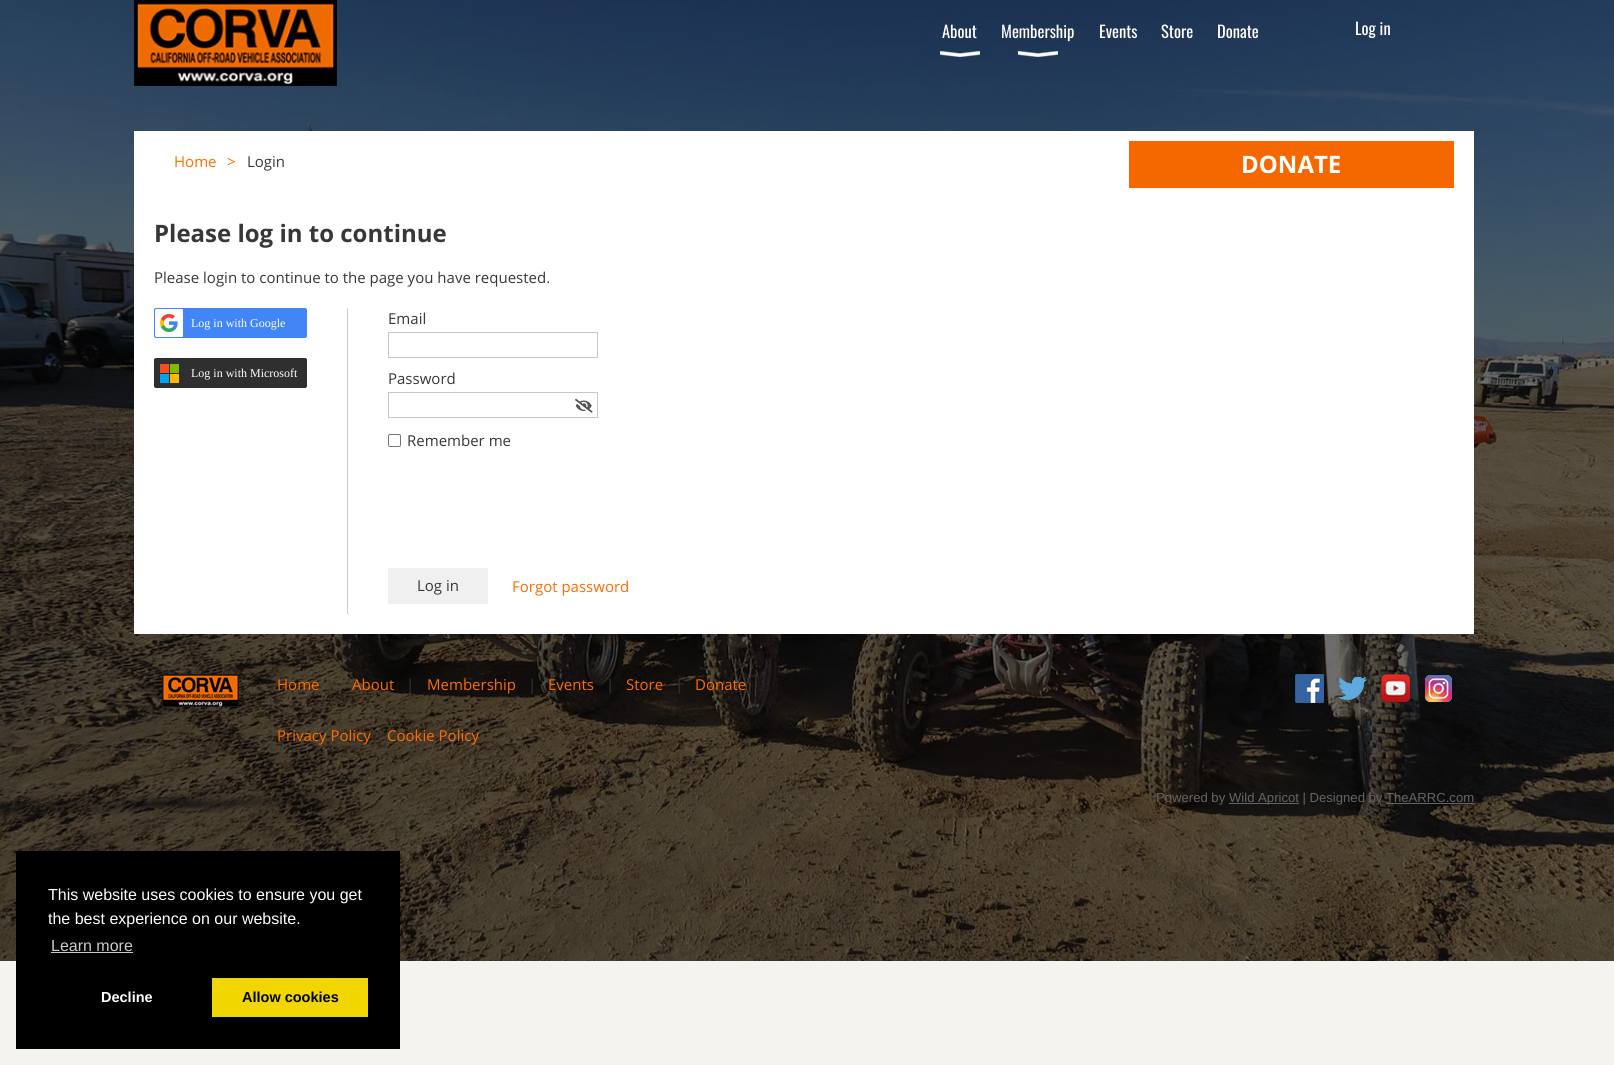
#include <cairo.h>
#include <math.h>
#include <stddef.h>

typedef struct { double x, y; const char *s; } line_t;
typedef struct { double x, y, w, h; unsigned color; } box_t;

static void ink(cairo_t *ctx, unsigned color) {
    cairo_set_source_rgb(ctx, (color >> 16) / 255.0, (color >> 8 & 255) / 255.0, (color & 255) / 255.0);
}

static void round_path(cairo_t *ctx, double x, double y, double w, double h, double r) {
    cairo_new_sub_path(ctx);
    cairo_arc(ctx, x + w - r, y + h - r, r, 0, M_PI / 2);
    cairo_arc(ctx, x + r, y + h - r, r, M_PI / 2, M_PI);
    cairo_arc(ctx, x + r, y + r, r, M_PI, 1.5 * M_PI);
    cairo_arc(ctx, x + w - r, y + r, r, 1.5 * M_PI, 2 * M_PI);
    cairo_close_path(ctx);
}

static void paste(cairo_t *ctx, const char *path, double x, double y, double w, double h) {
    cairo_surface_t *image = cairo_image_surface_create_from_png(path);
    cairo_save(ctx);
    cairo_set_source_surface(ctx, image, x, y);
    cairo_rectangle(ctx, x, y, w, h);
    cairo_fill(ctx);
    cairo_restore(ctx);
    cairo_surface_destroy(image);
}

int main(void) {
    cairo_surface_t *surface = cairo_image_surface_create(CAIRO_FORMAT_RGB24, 1614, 1065);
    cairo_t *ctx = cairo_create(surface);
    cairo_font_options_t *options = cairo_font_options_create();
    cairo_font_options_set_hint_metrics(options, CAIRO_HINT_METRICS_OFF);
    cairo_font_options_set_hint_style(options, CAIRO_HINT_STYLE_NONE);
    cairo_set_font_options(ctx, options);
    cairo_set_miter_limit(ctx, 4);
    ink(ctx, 0xF5F3EF);
    cairo_paint(ctx);
    paste(ctx, "media/4.png", 0, 0, 1614, 961);
    paste(ctx, "media/1.png", 134, 0, 203, 86);
    cairo_select_font_face(ctx, "Oswald", CAIRO_FONT_SLANT_NORMAL, CAIRO_FONT_WEIGHT_NORMAL);
    cairo_set_font_size(ctx, 16.5);
    ink(ctx, 0xFFFFFF);
    cairo_move_to(ctx, 942, 38);
    cairo_show_text(ctx, "About");
    paste(ctx, "media/2.png", 940, 51, 40, 6);
    cairo_move_to(ctx, 1001, 38);
    cairo_show_text(ctx, "Membership");
    paste(ctx, "media/3.png", 1018, 51, 40, 6);
    {
        static const line_t items[] = {
            {1099, 38, "Events"},
            {1161, 38, "Store"},
            {1217, 38, "Donate"},
            {1355, 35, "Log in"},
        };
        for (size_t i = 0; i < sizeof items / sizeof *items; i++) {
            cairo_move_to(ctx, items[i].x, items[i].y);
            cairo_show_text(ctx, items[i].s);
        }
    }
    cairo_rectangle(ctx, 134, 131, 1340, 503);
    cairo_fill(ctx);
    cairo_select_font_face(ctx, "Open Sans", CAIRO_FONT_SLANT_NORMAL, CAIRO_FONT_WEIGHT_NORMAL);
    cairo_set_font_size(ctx, 15);
    ink(ctx, 0xFF6C00);
    cairo_move_to(ctx, 174, 167);
    cairo_show_text(ctx, "Home");
    cairo_move_to(ctx, 227, 167);
    cairo_show_text(ctx, ">");
    ink(ctx, 0x373737);
    cairo_move_to(ctx, 247, 167);
    cairo_show_text(ctx, "Login");
    ink(ctx, 0xF56800);
    cairo_rectangle(ctx, 1129, 141, 325, 47);
    cairo_fill(ctx);
    cairo_select_font_face(ctx, "Open Sans", CAIRO_FONT_SLANT_NORMAL, CAIRO_FONT_WEIGHT_BOLD);
    cairo_set_font_size(ctx, 24);
    ink(ctx, 0xFFFFFF);
    cairo_move_to(ctx, 1241, 173);
    cairo_show_text(ctx, "DONATE");
    ink(ctx, 0x373737);
    cairo_move_to(ctx, 154, 242);
    cairo_show_text(ctx, "Please log in to continue");
    cairo_select_font_face(ctx, "Open Sans", CAIRO_FONT_SLANT_NORMAL, CAIRO_FONT_WEIGHT_NORMAL);
    cairo_set_font_size(ctx, 15);
    cairo_move_to(ctx, 154, 283);
    cairo_show_text(ctx, "Please login to continue to the page you have requested.");
    ink(ctx, 0xCDCDCD);
    cairo_rectangle(ctx, 347, 308, 1, 306);
    cairo_fill(ctx);
    ink(ctx, 0x4285F4);
    round_path(ctx, 154.5, 308.5, 152, 29, 1.5);
    cairo_fill_preserve(ctx);
    cairo_set_line_width(ctx, 1);
    cairo_stroke(ctx);
    paste(ctx, "media/5.png", 155, 309, 28, 28);
    cairo_select_font_face(ctx, "Liberation Serif", CAIRO_FONT_SLANT_NORMAL, CAIRO_FONT_WEIGHT_NORMAL);
    cairo_set_font_size(ctx, 12);
    ink(ctx, 0xFFFFFF);
    cairo_move_to(ctx, 191, 327);
    cairo_show_text(ctx, "Log in with Google");
    ink(ctx, 0x2F2F2F);
    round_path(ctx, 154.5, 358.5, 152, 29, 1.5);
    cairo_fill_preserve(ctx);
    cairo_stroke(ctx);
    {
        static const box_t items[] = {
            {160, 364, 9, 9, 0xF25022},
            {160, 374, 9, 9, 0x00A4EF},
            {170, 364, 9, 9, 0x7FBA00},
            {170, 374, 9, 9, 0xFFB900},
        };
        for (size_t i = 0; i < sizeof items / sizeof *items; i++) {
            ink(ctx, items[i].color);
            cairo_rectangle(ctx, items[i].x, items[i].y, items[i].w, items[i].h);
            cairo_fill(ctx);
        }
    }
    ink(ctx, 0xFFFFFF);
    cairo_move_to(ctx, 191, 377);
    cairo_show_text(ctx, "Log in with Microsoft");
    cairo_select_font_face(ctx, "Open Sans", CAIRO_FONT_SLANT_NORMAL, CAIRO_FONT_WEIGHT_NORMAL);
    cairo_set_font_size(ctx, 15);
    ink(ctx, 0x373737);
    cairo_move_to(ctx, 388, 324);
    cairo_show_text(ctx, "Email");
    cairo_rectangle(ctx, 388.5, 332.5, 209, 25);
    ink(ctx, 0xC6C6C6);
    cairo_stroke(ctx);
    ink(ctx, 0x373737);
    cairo_move_to(ctx, 388, 384);
    cairo_show_text(ctx, "Password");
    cairo_rectangle(ctx, 388.5, 392.5, 209, 25);
    ink(ctx, 0xC6C6C6);
    cairo_stroke(ctx);
    paste(ctx, "media/6.png", 575, 398, 18, 15);
    round_path(ctx, 388.5, 434.5, 12, 12, 1.5);
    ink(ctx, 0x767676);
    cairo_stroke(ctx);
    ink(ctx, 0x373737);
    cairo_move_to(ctx, 407, 446);
    cairo_show_text(ctx, "Remember me");
    ink(ctx, 0xF0F0F0);
    cairo_rectangle(ctx, 388, 568, 100, 36);
    cairo_fill(ctx);
    ink(ctx, 0x373737);
    cairo_move_to(ctx, 417, 591);
    cairo_show_text(ctx, "Log in");
    ink(ctx, 0xFF6C00);
    cairo_move_to(ctx, 512, 592);
    cairo_show_text(ctx, "Forgot password");
    paste(ctx, "media/7.png", 162, 674, 77, 33);
    cairo_move_to(ctx, 277, 690);
    cairo_show_text(ctx, "Home");
    cairo_move_to(ctx, 352, 690);
    cairo_show_text(ctx, "About");
    ink(ctx, 0x373737);
    cairo_move_to(ctx, 406, 690);
    cairo_show_text(ctx, "|");
    ink(ctx, 0xFF6C00);
    cairo_move_to(ctx, 427, 690);
    cairo_show_text(ctx, "Membership");
    ink(ctx, 0x373737);
    cairo_move_to(ctx, 528, 690);
    cairo_show_text(ctx, "|");
    ink(ctx, 0xFF6C00);
    cairo_move_to(ctx, 548, 690);
    cairo_show_text(ctx, "Events");
    ink(ctx, 0x373737);
    cairo_move_to(ctx, 606, 690);
    cairo_show_text(ctx, "|");
    ink(ctx, 0xFF6C00);
    cairo_move_to(ctx, 626, 690);
    cairo_show_text(ctx, "Store");
    ink(ctx, 0x373737);
    cairo_move_to(ctx, 675, 690);
    cairo_show_text(ctx, "|");
    ink(ctx, 0xFF6C00);
    {
        static const line_t items[] = {
            {695, 690, "Donate"},
            {277, 741, "Privacy Policy"},
            {387, 741, "Cookie Policy"},
        };
        for (size_t i = 0; i < sizeof items / sizeof *items; i++) {
            cairo_move_to(ctx, items[i].x, items[i].y);
            cairo_show_text(ctx, items[i].s);
        }
    }
    paste(ctx, "media/8.png", 1295, 674, 29, 29);
    paste(ctx, "media/9.png", 1338, 677, 29, 23);
    paste(ctx, "media/10.png", 1381, 674, 29, 29);
    paste(ctx, "media/11.png", 1425, 675, 27, 27);
    cairo_select_font_face(ctx, "Liberation Sans", CAIRO_FONT_SLANT_NORMAL, CAIRO_FONT_WEIGHT_NORMAL);
    cairo_set_font_size(ctx, 13.1);
    ink(ctx, 0x646464);
    cairo_move_to(ctx, 1156, 802);
    cairo_show_text(ctx, "Powered by");
    cairo_rectangle(ctx, 1229, 803, 70, 1);
    cairo_fill(ctx);
    cairo_move_to(ctx, 1229, 802);
    cairo_show_text(ctx, "Wild Apricot | Designed by TheARRC.com");
    cairo_rectangle(ctx, 1386, 803, 88, 1);
    cairo_fill(ctx);
    ink(ctx, 0x000000);
    cairo_rectangle(ctx, 16, 851, 384, 198);
    cairo_fill(ctx);
    cairo_set_font_size(ctx, 16);
    ink(ctx, 0xFFFFFF);
    cairo_move_to(ctx, 48, 900);
    cairo_show_text(ctx, "This website uses cookies to ensure you get");
    cairo_move_to(ctx, 48, 924);
    cairo_show_text(ctx, "the best experience on our website.");
    ink(ctx, 0xCCCCCC);
    cairo_move_to(ctx, 51, 951);
    cairo_show_text(ctx, "Learn more");
    cairo_rectangle(ctx, 51, 952, 82, 1);
    cairo_fill(ctx);
    cairo_select_font_face(ctx, "Liberation Sans", CAIRO_FONT_SLANT_NORMAL, CAIRO_FONT_WEIGHT_BOLD);
    cairo_set_font_size(ctx, 14.5);
    ink(ctx, 0xFFFFFF);
    cairo_move_to(ctx, 101, 1002);
    cairo_show_text(ctx, "Decline");
    ink(ctx, 0xF1D600);
    cairo_rectangle(ctx, 212, 978, 156, 39);
    cairo_fill(ctx);
    ink(ctx, 0x000000);
    cairo_move_to(ctx, 242, 1002);
    cairo_show_text(ctx, "Allow cookies");
    cairo_surface_write_to_png(surface, "image.png");
    cairo_font_options_destroy(options);
    cairo_destroy(ctx);
    cairo_surface_destroy(surface);
    return 0;
}
